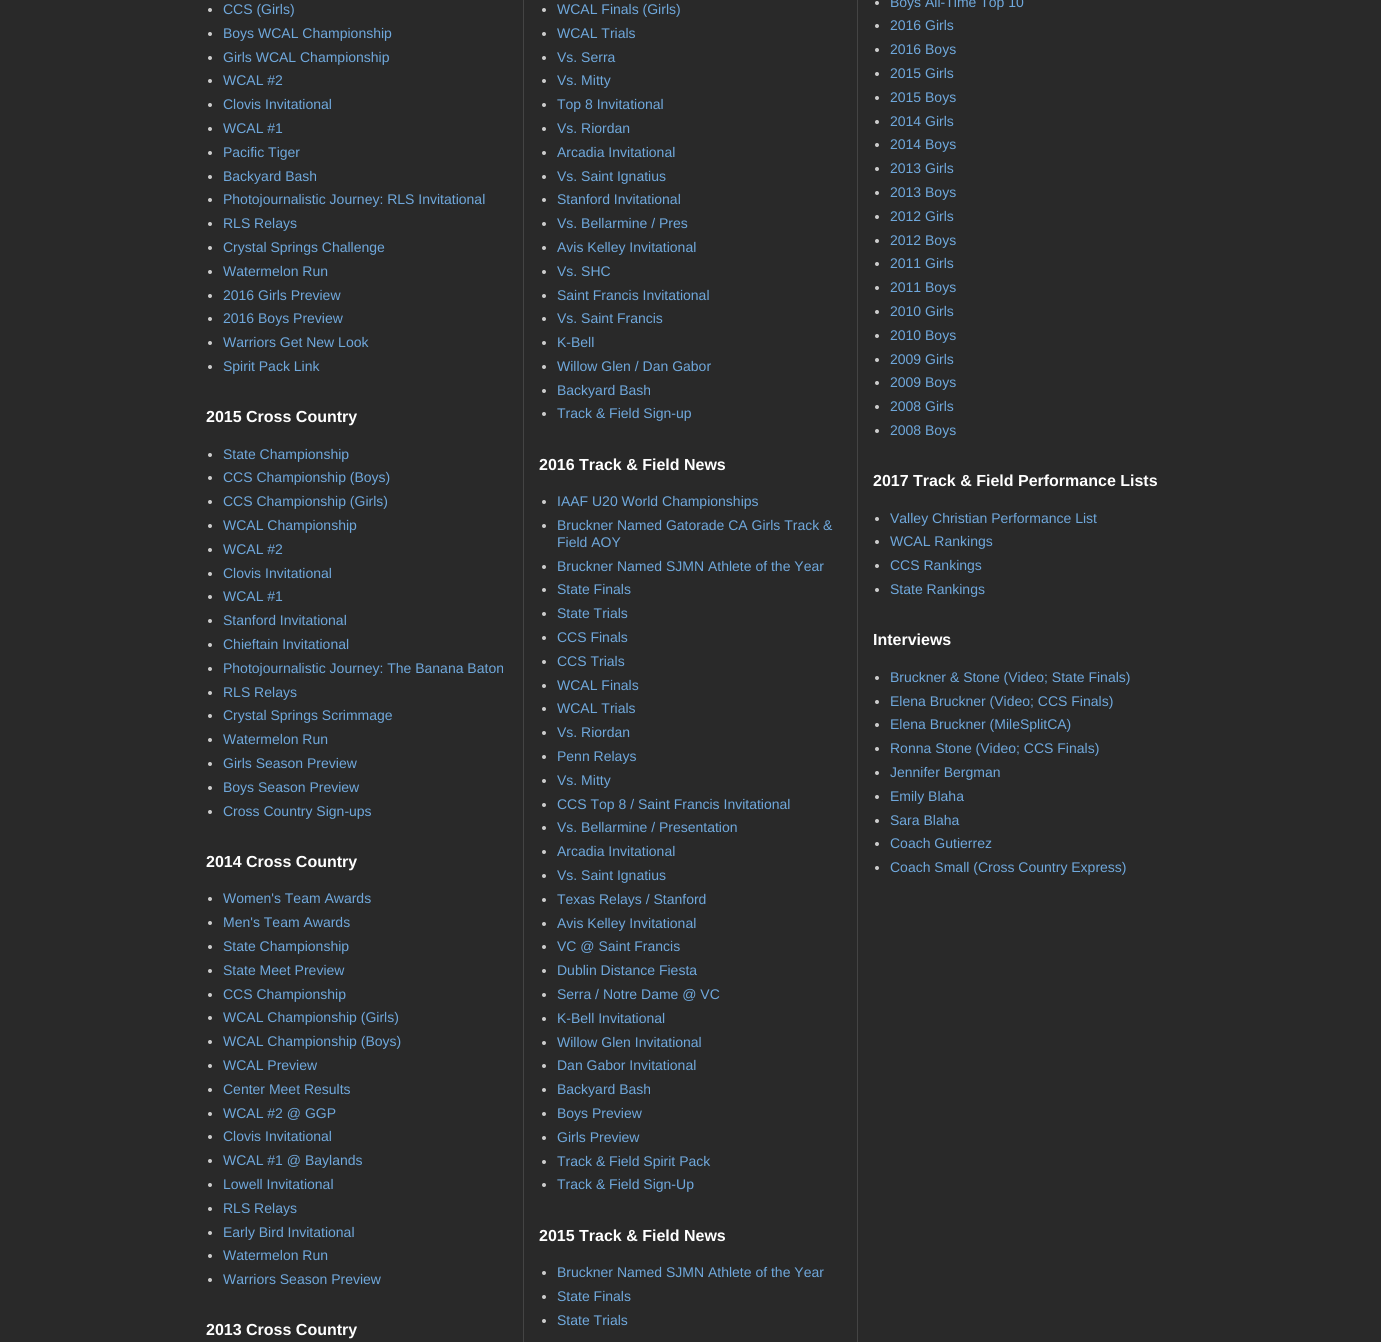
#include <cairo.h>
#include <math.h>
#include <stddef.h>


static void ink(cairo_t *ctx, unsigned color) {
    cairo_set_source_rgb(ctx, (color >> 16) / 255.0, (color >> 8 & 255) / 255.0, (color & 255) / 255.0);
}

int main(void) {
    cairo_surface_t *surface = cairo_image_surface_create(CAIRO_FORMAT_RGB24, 1381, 1342);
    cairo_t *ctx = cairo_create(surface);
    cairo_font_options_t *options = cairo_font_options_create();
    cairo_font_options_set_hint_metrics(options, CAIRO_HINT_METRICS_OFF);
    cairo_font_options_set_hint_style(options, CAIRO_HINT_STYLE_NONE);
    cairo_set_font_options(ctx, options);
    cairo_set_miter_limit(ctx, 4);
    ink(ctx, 0x292929);
    cairo_paint(ctx);
    ink(ctx, 0xCCCCCC);
    cairo_arc(ctx, 210, 10, 2, 0, 2 * M_PI);
    cairo_fill(ctx);
    cairo_select_font_face(ctx, "Liberation Sans", CAIRO_FONT_SLANT_NORMAL, CAIRO_FONT_WEIGHT_NORMAL);
    cairo_set_font_size(ctx, 14);
    ink(ctx, 0x6FA8DC);
    cairo_move_to(ctx, 223, 14);
    cairo_show_text(ctx, "CCS (Girls)");
    ink(ctx, 0xCCCCCC);
    cairo_new_path(ctx);
    cairo_arc(ctx, 210, 34, 2, 0, 2 * M_PI);
    cairo_fill(ctx);
    ink(ctx, 0x6FA8DC);
    cairo_move_to(ctx, 223, 38);
    cairo_show_text(ctx, "Boys WCAL Championship");
    ink(ctx, 0xCCCCCC);
    cairo_new_path(ctx);
    cairo_arc(ctx, 210, 58, 2, 0, 2 * M_PI);
    cairo_fill(ctx);
    ink(ctx, 0x6FA8DC);
    cairo_move_to(ctx, 223, 62);
    cairo_show_text(ctx, "Girls WCAL Championship");
    ink(ctx, 0xCCCCCC);
    cairo_new_path(ctx);
    cairo_arc(ctx, 210, 81, 2, 0, 2 * M_PI);
    cairo_fill(ctx);
    ink(ctx, 0x6FA8DC);
    cairo_move_to(ctx, 223, 85);
    cairo_show_text(ctx, "WCAL #2");
    ink(ctx, 0xCCCCCC);
    cairo_new_path(ctx);
    cairo_arc(ctx, 210, 105, 2, 0, 2 * M_PI);
    cairo_fill(ctx);
    ink(ctx, 0x6FA8DC);
    cairo_move_to(ctx, 223, 109);
    cairo_show_text(ctx, "Clovis Invitational");
    ink(ctx, 0xCCCCCC);
    cairo_new_path(ctx);
    cairo_arc(ctx, 210, 129, 2, 0, 2 * M_PI);
    cairo_fill(ctx);
    ink(ctx, 0x6FA8DC);
    cairo_move_to(ctx, 223, 133);
    cairo_show_text(ctx, "WCAL #1");
    ink(ctx, 0xCCCCCC);
    cairo_new_path(ctx);
    cairo_arc(ctx, 210, 153, 2, 0, 2 * M_PI);
    cairo_fill(ctx);
    ink(ctx, 0x6FA8DC);
    cairo_move_to(ctx, 223, 157);
    cairo_show_text(ctx, "Pacific Tiger");
    ink(ctx, 0xCCCCCC);
    cairo_new_path(ctx);
    cairo_arc(ctx, 210, 177, 2, 0, 2 * M_PI);
    cairo_fill(ctx);
    ink(ctx, 0x6FA8DC);
    cairo_move_to(ctx, 223, 181);
    cairo_show_text(ctx, "Backyard Bash");
    ink(ctx, 0xCCCCCC);
    cairo_new_path(ctx);
    cairo_arc(ctx, 210, 200, 2, 0, 2 * M_PI);
    cairo_fill(ctx);
    ink(ctx, 0x6FA8DC);
    cairo_move_to(ctx, 223, 204);
    cairo_show_text(ctx, "Photojournalistic Journey: RLS Invitational");
    ink(ctx, 0xCCCCCC);
    cairo_new_path(ctx);
    cairo_arc(ctx, 210, 224, 2, 0, 2 * M_PI);
    cairo_fill(ctx);
    ink(ctx, 0x6FA8DC);
    cairo_move_to(ctx, 223, 228);
    cairo_show_text(ctx, "RLS Relays");
    ink(ctx, 0xCCCCCC);
    cairo_new_path(ctx);
    cairo_arc(ctx, 210, 248, 2, 0, 2 * M_PI);
    cairo_fill(ctx);
    ink(ctx, 0x6FA8DC);
    cairo_move_to(ctx, 223, 252);
    cairo_show_text(ctx, "Crystal Springs Challenge");
    ink(ctx, 0xCCCCCC);
    cairo_new_path(ctx);
    cairo_arc(ctx, 210, 272, 2, 0, 2 * M_PI);
    cairo_fill(ctx);
    ink(ctx, 0x6FA8DC);
    cairo_move_to(ctx, 223, 276);
    cairo_show_text(ctx, "Watermelon Run");
    ink(ctx, 0xCCCCCC);
    cairo_new_path(ctx);
    cairo_arc(ctx, 210, 296, 2, 0, 2 * M_PI);
    cairo_fill(ctx);
    ink(ctx, 0x6FA8DC);
    cairo_move_to(ctx, 223, 300);
    cairo_show_text(ctx, "2016 Girls Preview");
    ink(ctx, 0xCCCCCC);
    cairo_new_path(ctx);
    cairo_arc(ctx, 210, 319, 2, 0, 2 * M_PI);
    cairo_fill(ctx);
    ink(ctx, 0x6FA8DC);
    cairo_move_to(ctx, 223, 323);
    cairo_show_text(ctx, "2016 Boys Preview");
    ink(ctx, 0xCCCCCC);
    cairo_new_path(ctx);
    cairo_arc(ctx, 210, 343, 2, 0, 2 * M_PI);
    cairo_fill(ctx);
    ink(ctx, 0x6FA8DC);
    cairo_move_to(ctx, 223, 347);
    cairo_show_text(ctx, "Warriors Get New Look");
    ink(ctx, 0xCCCCCC);
    cairo_new_path(ctx);
    cairo_arc(ctx, 210, 367, 2, 0, 2 * M_PI);
    cairo_fill(ctx);
    ink(ctx, 0x6FA8DC);
    cairo_move_to(ctx, 223, 371);
    cairo_show_text(ctx, "Spirit Pack Link");
    cairo_select_font_face(ctx, "Liberation Sans", CAIRO_FONT_SLANT_NORMAL, CAIRO_FONT_WEIGHT_BOLD);
    cairo_set_font_size(ctx, 16);
    ink(ctx, 0xFFFFFF);
    cairo_move_to(ctx, 206, 422);
    cairo_show_text(ctx, "2015 Cross Country");
    ink(ctx, 0xCCCCCC);
    cairo_new_path(ctx);
    cairo_arc(ctx, 210, 455, 2, 0, 2 * M_PI);
    cairo_fill(ctx);
    cairo_select_font_face(ctx, "Liberation Sans", CAIRO_FONT_SLANT_NORMAL, CAIRO_FONT_WEIGHT_NORMAL);
    cairo_set_font_size(ctx, 14);
    ink(ctx, 0x6FA8DC);
    cairo_move_to(ctx, 223, 459);
    cairo_show_text(ctx, "State Championship");
    ink(ctx, 0xCCCCCC);
    cairo_new_path(ctx);
    cairo_arc(ctx, 210, 478, 2, 0, 2 * M_PI);
    cairo_fill(ctx);
    ink(ctx, 0x6FA8DC);
    cairo_move_to(ctx, 223, 482);
    cairo_show_text(ctx, "CCS Championship (Boys)");
    ink(ctx, 0xCCCCCC);
    cairo_new_path(ctx);
    cairo_arc(ctx, 210, 502, 2, 0, 2 * M_PI);
    cairo_fill(ctx);
    ink(ctx, 0x6FA8DC);
    cairo_move_to(ctx, 223, 506);
    cairo_show_text(ctx, "CCS Championship (Girls)");
    ink(ctx, 0xCCCCCC);
    cairo_new_path(ctx);
    cairo_arc(ctx, 210, 526, 2, 0, 2 * M_PI);
    cairo_fill(ctx);
    ink(ctx, 0x6FA8DC);
    cairo_move_to(ctx, 223, 530);
    cairo_show_text(ctx, "WCAL Championship");
    ink(ctx, 0xCCCCCC);
    cairo_new_path(ctx);
    cairo_arc(ctx, 210, 550, 2, 0, 2 * M_PI);
    cairo_fill(ctx);
    ink(ctx, 0x6FA8DC);
    cairo_move_to(ctx, 223, 554);
    cairo_show_text(ctx, "WCAL #2");
    ink(ctx, 0xCCCCCC);
    cairo_new_path(ctx);
    cairo_arc(ctx, 210, 574, 2, 0, 2 * M_PI);
    cairo_fill(ctx);
    ink(ctx, 0x6FA8DC);
    cairo_move_to(ctx, 223, 578);
    cairo_show_text(ctx, "Clovis Invitational");
    ink(ctx, 0xCCCCCC);
    cairo_new_path(ctx);
    cairo_arc(ctx, 210, 597, 2, 0, 2 * M_PI);
    cairo_fill(ctx);
    ink(ctx, 0x6FA8DC);
    cairo_move_to(ctx, 223, 601);
    cairo_show_text(ctx, "WCAL #1");
    ink(ctx, 0xCCCCCC);
    cairo_new_path(ctx);
    cairo_arc(ctx, 210, 621, 2, 0, 2 * M_PI);
    cairo_fill(ctx);
    ink(ctx, 0x6FA8DC);
    cairo_move_to(ctx, 223, 625);
    cairo_show_text(ctx, "Stanford Invitational");
    ink(ctx, 0xCCCCCC);
    cairo_new_path(ctx);
    cairo_arc(ctx, 210, 645, 2, 0, 2 * M_PI);
    cairo_fill(ctx);
    ink(ctx, 0x6FA8DC);
    cairo_move_to(ctx, 223, 649);
    cairo_show_text(ctx, "Chieftain Invitational");
    ink(ctx, 0xCCCCCC);
    cairo_new_path(ctx);
    cairo_arc(ctx, 210, 669, 2, 0, 2 * M_PI);
    cairo_fill(ctx);
    ink(ctx, 0x6FA8DC);
    cairo_move_to(ctx, 223, 673);
    cairo_show_text(ctx, "Photojournalistic Journey: The Banana Baton");
    ink(ctx, 0xCCCCCC);
    cairo_new_path(ctx);
    cairo_arc(ctx, 210, 693, 2, 0, 2 * M_PI);
    cairo_fill(ctx);
    ink(ctx, 0x6FA8DC);
    cairo_move_to(ctx, 223, 697);
    cairo_show_text(ctx, "RLS Relays");
    ink(ctx, 0xCCCCCC);
    cairo_new_path(ctx);
    cairo_arc(ctx, 210, 716, 2, 0, 2 * M_PI);
    cairo_fill(ctx);
    ink(ctx, 0x6FA8DC);
    cairo_move_to(ctx, 223, 720);
    cairo_show_text(ctx, "Crystal Springs Scrimmage");
    ink(ctx, 0xCCCCCC);
    cairo_new_path(ctx);
    cairo_arc(ctx, 210, 740, 2, 0, 2 * M_PI);
    cairo_fill(ctx);
    ink(ctx, 0x6FA8DC);
    cairo_move_to(ctx, 223, 744);
    cairo_show_text(ctx, "Watermelon Run");
    ink(ctx, 0xCCCCCC);
    cairo_new_path(ctx);
    cairo_arc(ctx, 210, 764, 2, 0, 2 * M_PI);
    cairo_fill(ctx);
    ink(ctx, 0x6FA8DC);
    cairo_move_to(ctx, 223, 768);
    cairo_show_text(ctx, "Girls Season Preview");
    ink(ctx, 0xCCCCCC);
    cairo_new_path(ctx);
    cairo_arc(ctx, 210, 788, 2, 0, 2 * M_PI);
    cairo_fill(ctx);
    ink(ctx, 0x6FA8DC);
    cairo_move_to(ctx, 223, 792);
    cairo_show_text(ctx, "Boys Season Preview");
    ink(ctx, 0xCCCCCC);
    cairo_new_path(ctx);
    cairo_arc(ctx, 210, 812, 2, 0, 2 * M_PI);
    cairo_fill(ctx);
    ink(ctx, 0x6FA8DC);
    cairo_move_to(ctx, 223, 816);
    cairo_show_text(ctx, "Cross Country Sign-ups");
    cairo_select_font_face(ctx, "Liberation Sans", CAIRO_FONT_SLANT_NORMAL, CAIRO_FONT_WEIGHT_BOLD);
    cairo_set_font_size(ctx, 16);
    ink(ctx, 0xFFFFFF);
    cairo_move_to(ctx, 206, 867);
    cairo_show_text(ctx, "2014 Cross Country");
    ink(ctx, 0xCCCCCC);
    cairo_new_path(ctx);
    cairo_arc(ctx, 210, 899, 2, 0, 2 * M_PI);
    cairo_fill(ctx);
    cairo_select_font_face(ctx, "Liberation Sans", CAIRO_FONT_SLANT_NORMAL, CAIRO_FONT_WEIGHT_NORMAL);
    cairo_set_font_size(ctx, 14);
    ink(ctx, 0x6FA8DC);
    cairo_move_to(ctx, 223, 903);
    cairo_show_text(ctx, "Women's Team Awards");
    ink(ctx, 0xCCCCCC);
    cairo_new_path(ctx);
    cairo_arc(ctx, 210, 923, 2, 0, 2 * M_PI);
    cairo_fill(ctx);
    ink(ctx, 0x6FA8DC);
    cairo_move_to(ctx, 223, 927);
    cairo_show_text(ctx, "Men's Team Awards");
    ink(ctx, 0xCCCCCC);
    cairo_new_path(ctx);
    cairo_arc(ctx, 210, 947, 2, 0, 2 * M_PI);
    cairo_fill(ctx);
    ink(ctx, 0x6FA8DC);
    cairo_move_to(ctx, 223, 951);
    cairo_show_text(ctx, "State Championship");
    ink(ctx, 0xCCCCCC);
    cairo_new_path(ctx);
    cairo_arc(ctx, 210, 971, 2, 0, 2 * M_PI);
    cairo_fill(ctx);
    ink(ctx, 0x6FA8DC);
    cairo_move_to(ctx, 223, 975);
    cairo_show_text(ctx, "State Meet Preview");
    ink(ctx, 0xCCCCCC);
    cairo_new_path(ctx);
    cairo_arc(ctx, 210, 995, 2, 0, 2 * M_PI);
    cairo_fill(ctx);
    ink(ctx, 0x6FA8DC);
    cairo_move_to(ctx, 223, 999);
    cairo_show_text(ctx, "CCS Championship");
    ink(ctx, 0xCCCCCC);
    cairo_new_path(ctx);
    cairo_arc(ctx, 210, 1018, 2, 0, 2 * M_PI);
    cairo_fill(ctx);
    ink(ctx, 0x6FA8DC);
    cairo_move_to(ctx, 223, 1022);
    cairo_show_text(ctx, "WCAL Championship (Girls)");
    ink(ctx, 0xCCCCCC);
    cairo_new_path(ctx);
    cairo_arc(ctx, 210, 1042, 2, 0, 2 * M_PI);
    cairo_fill(ctx);
    ink(ctx, 0x6FA8DC);
    cairo_move_to(ctx, 223, 1046);
    cairo_show_text(ctx, "WCAL Championship (Boys)");
    ink(ctx, 0xCCCCCC);
    cairo_new_path(ctx);
    cairo_arc(ctx, 210, 1066, 2, 0, 2 * M_PI);
    cairo_fill(ctx);
    ink(ctx, 0x6FA8DC);
    cairo_move_to(ctx, 223, 1070);
    cairo_show_text(ctx, "WCAL Preview");
    ink(ctx, 0xCCCCCC);
    cairo_new_path(ctx);
    cairo_arc(ctx, 210, 1090, 2, 0, 2 * M_PI);
    cairo_fill(ctx);
    ink(ctx, 0x6FA8DC);
    cairo_move_to(ctx, 223, 1094);
    cairo_show_text(ctx, "Center Meet Results");
    ink(ctx, 0xCCCCCC);
    cairo_new_path(ctx);
    cairo_arc(ctx, 210, 1114, 2, 0, 2 * M_PI);
    cairo_fill(ctx);
    ink(ctx, 0x6FA8DC);
    cairo_move_to(ctx, 223, 1118);
    cairo_show_text(ctx, "WCAL #2 @ GGP");
    ink(ctx, 0xCCCCCC);
    cairo_new_path(ctx);
    cairo_arc(ctx, 210, 1137, 2, 0, 2 * M_PI);
    cairo_fill(ctx);
    ink(ctx, 0x6FA8DC);
    cairo_move_to(ctx, 223, 1141);
    cairo_show_text(ctx, "Clovis Invitational");
    ink(ctx, 0xCCCCCC);
    cairo_new_path(ctx);
    cairo_arc(ctx, 210, 1161, 2, 0, 2 * M_PI);
    cairo_fill(ctx);
    ink(ctx, 0x6FA8DC);
    cairo_move_to(ctx, 223, 1165);
    cairo_show_text(ctx, "WCAL #1 @ Baylands");
    ink(ctx, 0xCCCCCC);
    cairo_new_path(ctx);
    cairo_arc(ctx, 210, 1185, 2, 0, 2 * M_PI);
    cairo_fill(ctx);
    ink(ctx, 0x6FA8DC);
    cairo_move_to(ctx, 223, 1189);
    cairo_show_text(ctx, "Lowell Invitational");
    ink(ctx, 0xCCCCCC);
    cairo_new_path(ctx);
    cairo_arc(ctx, 210, 1209, 2, 0, 2 * M_PI);
    cairo_fill(ctx);
    ink(ctx, 0x6FA8DC);
    cairo_move_to(ctx, 223, 1213);
    cairo_show_text(ctx, "RLS Relays");
    ink(ctx, 0xCCCCCC);
    cairo_new_path(ctx);
    cairo_arc(ctx, 210, 1233, 2, 0, 2 * M_PI);
    cairo_fill(ctx);
    ink(ctx, 0x6FA8DC);
    cairo_move_to(ctx, 223, 1237);
    cairo_show_text(ctx, "Early Bird Invitational");
    ink(ctx, 0xCCCCCC);
    cairo_new_path(ctx);
    cairo_arc(ctx, 210, 1256, 2, 0, 2 * M_PI);
    cairo_fill(ctx);
    ink(ctx, 0x6FA8DC);
    cairo_move_to(ctx, 223, 1260);
    cairo_show_text(ctx, "Watermelon Run");
    ink(ctx, 0xCCCCCC);
    cairo_new_path(ctx);
    cairo_arc(ctx, 210, 1280, 2, 0, 2 * M_PI);
    cairo_fill(ctx);
    ink(ctx, 0x6FA8DC);
    cairo_move_to(ctx, 223, 1284);
    cairo_show_text(ctx, "Warriors Season Preview");
    cairo_select_font_face(ctx, "Liberation Sans", CAIRO_FONT_SLANT_NORMAL, CAIRO_FONT_WEIGHT_BOLD);
    cairo_set_font_size(ctx, 16);
    ink(ctx, 0xFFFFFF);
    cairo_move_to(ctx, 206, 1335);
    cairo_show_text(ctx, "2013 Cross Country");
    ink(ctx, 0x444444);
    cairo_rectangle(ctx, 523, 0, 1, 1342);
    cairo_fill(ctx);
    ink(ctx, 0xCCCCCC);
    cairo_arc(ctx, 544, 10, 2, 0, 2 * M_PI);
    cairo_fill(ctx);
    cairo_select_font_face(ctx, "Liberation Sans", CAIRO_FONT_SLANT_NORMAL, CAIRO_FONT_WEIGHT_NORMAL);
    cairo_set_font_size(ctx, 14);
    ink(ctx, 0x6FA8DC);
    cairo_move_to(ctx, 557, 14);
    cairo_show_text(ctx, "WCAL Finals (Girls)");
    ink(ctx, 0xCCCCCC);
    cairo_new_path(ctx);
    cairo_arc(ctx, 544, 34, 2, 0, 2 * M_PI);
    cairo_fill(ctx);
    ink(ctx, 0x6FA8DC);
    cairo_move_to(ctx, 557, 38);
    cairo_show_text(ctx, "WCAL Trials");
    ink(ctx, 0xCCCCCC);
    cairo_new_path(ctx);
    cairo_arc(ctx, 544, 58, 2, 0, 2 * M_PI);
    cairo_fill(ctx);
    ink(ctx, 0x6FA8DC);
    cairo_move_to(ctx, 557, 62);
    cairo_show_text(ctx, "Vs. Serra");
    ink(ctx, 0xCCCCCC);
    cairo_new_path(ctx);
    cairo_arc(ctx, 544, 81, 2, 0, 2 * M_PI);
    cairo_fill(ctx);
    ink(ctx, 0x6FA8DC);
    cairo_move_to(ctx, 557, 85);
    cairo_show_text(ctx, "Vs. Mitty");
    ink(ctx, 0xCCCCCC);
    cairo_new_path(ctx);
    cairo_arc(ctx, 544, 105, 2, 0, 2 * M_PI);
    cairo_fill(ctx);
    ink(ctx, 0x6FA8DC);
    cairo_move_to(ctx, 557, 109);
    cairo_show_text(ctx, "Top 8 Invitational");
    ink(ctx, 0xCCCCCC);
    cairo_new_path(ctx);
    cairo_arc(ctx, 544, 129, 2, 0, 2 * M_PI);
    cairo_fill(ctx);
    ink(ctx, 0x6FA8DC);
    cairo_move_to(ctx, 557, 133);
    cairo_show_text(ctx, "Vs. Riordan");
    ink(ctx, 0xCCCCCC);
    cairo_new_path(ctx);
    cairo_arc(ctx, 544, 153, 2, 0, 2 * M_PI);
    cairo_fill(ctx);
    ink(ctx, 0x6FA8DC);
    cairo_move_to(ctx, 557, 157);
    cairo_show_text(ctx, "Arcadia Invitational");
    ink(ctx, 0xCCCCCC);
    cairo_new_path(ctx);
    cairo_arc(ctx, 544, 177, 2, 0, 2 * M_PI);
    cairo_fill(ctx);
    ink(ctx, 0x6FA8DC);
    cairo_move_to(ctx, 557, 181);
    cairo_show_text(ctx, "Vs. Saint Ignatius");
    ink(ctx, 0xCCCCCC);
    cairo_new_path(ctx);
    cairo_arc(ctx, 544, 200, 2, 0, 2 * M_PI);
    cairo_fill(ctx);
    ink(ctx, 0x6FA8DC);
    cairo_move_to(ctx, 557, 204);
    cairo_show_text(ctx, "Stanford Invitational");
    ink(ctx, 0xCCCCCC);
    cairo_new_path(ctx);
    cairo_arc(ctx, 544, 224, 2, 0, 2 * M_PI);
    cairo_fill(ctx);
    ink(ctx, 0x6FA8DC);
    cairo_move_to(ctx, 557, 228);
    cairo_show_text(ctx, "Vs. Bellarmine / Pres");
    ink(ctx, 0xCCCCCC);
    cairo_new_path(ctx);
    cairo_arc(ctx, 544, 248, 2, 0, 2 * M_PI);
    cairo_fill(ctx);
    ink(ctx, 0x6FA8DC);
    cairo_move_to(ctx, 557, 252);
    cairo_show_text(ctx, "Avis Kelley Invitational");
    ink(ctx, 0xCCCCCC);
    cairo_new_path(ctx);
    cairo_arc(ctx, 544, 272, 2, 0, 2 * M_PI);
    cairo_fill(ctx);
    ink(ctx, 0x6FA8DC);
    cairo_move_to(ctx, 557, 276);
    cairo_show_text(ctx, "Vs. SHC");
    ink(ctx, 0xCCCCCC);
    cairo_new_path(ctx);
    cairo_arc(ctx, 544, 296, 2, 0, 2 * M_PI);
    cairo_fill(ctx);
    ink(ctx, 0x6FA8DC);
    cairo_move_to(ctx, 557, 300);
    cairo_show_text(ctx, "Saint Francis Invitational");
    ink(ctx, 0xCCCCCC);
    cairo_new_path(ctx);
    cairo_arc(ctx, 544, 319, 2, 0, 2 * M_PI);
    cairo_fill(ctx);
    ink(ctx, 0x6FA8DC);
    cairo_move_to(ctx, 557, 323);
    cairo_show_text(ctx, "Vs. Saint Francis");
    ink(ctx, 0xCCCCCC);
    cairo_new_path(ctx);
    cairo_arc(ctx, 544, 343, 2, 0, 2 * M_PI);
    cairo_fill(ctx);
    ink(ctx, 0x6FA8DC);
    cairo_move_to(ctx, 557, 347);
    cairo_show_text(ctx, "K-Bell");
    ink(ctx, 0xCCCCCC);
    cairo_new_path(ctx);
    cairo_arc(ctx, 544, 367, 2, 0, 2 * M_PI);
    cairo_fill(ctx);
    ink(ctx, 0x6FA8DC);
    cairo_move_to(ctx, 557, 371);
    cairo_show_text(ctx, "Willow Glen / Dan Gabor");
    ink(ctx, 0xCCCCCC);
    cairo_new_path(ctx);
    cairo_arc(ctx, 544, 391, 2, 0, 2 * M_PI);
    cairo_fill(ctx);
    ink(ctx, 0x6FA8DC);
    cairo_move_to(ctx, 557, 395);
    cairo_show_text(ctx, "Backyard Bash");
    ink(ctx, 0xCCCCCC);
    cairo_new_path(ctx);
    cairo_arc(ctx, 544, 414, 2, 0, 2 * M_PI);
    cairo_fill(ctx);
    ink(ctx, 0x6FA8DC);
    cairo_move_to(ctx, 557, 418);
    cairo_show_text(ctx, "Track & Field Sign-up");
    cairo_select_font_face(ctx, "Liberation Sans", CAIRO_FONT_SLANT_NORMAL, CAIRO_FONT_WEIGHT_BOLD);
    cairo_set_font_size(ctx, 16);
    ink(ctx, 0xFFFFFF);
    cairo_move_to(ctx, 539, 470);
    cairo_show_text(ctx, "2016 Track & Field News");
    ink(ctx, 0xCCCCCC);
    cairo_new_path(ctx);
    cairo_arc(ctx, 544, 502, 2, 0, 2 * M_PI);
    cairo_fill(ctx);
    cairo_select_font_face(ctx, "Liberation Sans", CAIRO_FONT_SLANT_NORMAL, CAIRO_FONT_WEIGHT_NORMAL);
    cairo_set_font_size(ctx, 14);
    ink(ctx, 0x6FA8DC);
    cairo_move_to(ctx, 557, 506);
    cairo_show_text(ctx, "IAAF U20 World Championships");
    ink(ctx, 0xCCCCCC);
    cairo_new_path(ctx);
    cairo_arc(ctx, 544, 526, 2, 0, 2 * M_PI);
    cairo_fill(ctx);
    ink(ctx, 0x6FA8DC);
    cairo_move_to(ctx, 557, 530);
    cairo_show_text(ctx, "Bruckner Named Gatorade CA Girls Track &");
    cairo_move_to(ctx, 557, 547);
    cairo_show_text(ctx, "Field AOY");
    ink(ctx, 0xCCCCCC);
    cairo_new_path(ctx);
    cairo_arc(ctx, 544, 567, 2, 0, 2 * M_PI);
    cairo_fill(ctx);
    ink(ctx, 0x6FA8DC);
    cairo_move_to(ctx, 557, 571);
    cairo_show_text(ctx, "Bruckner Named SJMN Athlete of the Year");
    ink(ctx, 0xCCCCCC);
    cairo_new_path(ctx);
    cairo_arc(ctx, 544, 590, 2, 0, 2 * M_PI);
    cairo_fill(ctx);
    ink(ctx, 0x6FA8DC);
    cairo_move_to(ctx, 557, 594);
    cairo_show_text(ctx, "State Finals");
    ink(ctx, 0xCCCCCC);
    cairo_new_path(ctx);
    cairo_arc(ctx, 544, 614, 2, 0, 2 * M_PI);
    cairo_fill(ctx);
    ink(ctx, 0x6FA8DC);
    cairo_move_to(ctx, 557, 618);
    cairo_show_text(ctx, "State Trials");
    ink(ctx, 0xCCCCCC);
    cairo_new_path(ctx);
    cairo_arc(ctx, 544, 638, 2, 0, 2 * M_PI);
    cairo_fill(ctx);
    ink(ctx, 0x6FA8DC);
    cairo_move_to(ctx, 557, 642);
    cairo_show_text(ctx, "CCS Finals");
    ink(ctx, 0xCCCCCC);
    cairo_new_path(ctx);
    cairo_arc(ctx, 544, 662, 2, 0, 2 * M_PI);
    cairo_fill(ctx);
    ink(ctx, 0x6FA8DC);
    cairo_move_to(ctx, 557, 666);
    cairo_show_text(ctx, "CCS Trials");
    ink(ctx, 0xCCCCCC);
    cairo_new_path(ctx);
    cairo_arc(ctx, 544, 686, 2, 0, 2 * M_PI);
    cairo_fill(ctx);
    ink(ctx, 0x6FA8DC);
    cairo_move_to(ctx, 557, 690);
    cairo_show_text(ctx, "WCAL Finals");
    ink(ctx, 0xCCCCCC);
    cairo_new_path(ctx);
    cairo_arc(ctx, 544, 709, 2, 0, 2 * M_PI);
    cairo_fill(ctx);
    ink(ctx, 0x6FA8DC);
    cairo_move_to(ctx, 557, 713);
    cairo_show_text(ctx, "WCAL Trials");
    ink(ctx, 0xCCCCCC);
    cairo_new_path(ctx);
    cairo_arc(ctx, 544, 733, 2, 0, 2 * M_PI);
    cairo_fill(ctx);
    ink(ctx, 0x6FA8DC);
    cairo_move_to(ctx, 557, 737);
    cairo_show_text(ctx, "Vs. Riordan");
    ink(ctx, 0xCCCCCC);
    cairo_new_path(ctx);
    cairo_arc(ctx, 544, 757, 2, 0, 2 * M_PI);
    cairo_fill(ctx);
    ink(ctx, 0x6FA8DC);
    cairo_move_to(ctx, 557, 761);
    cairo_show_text(ctx, "Penn Relays");
    ink(ctx, 0xCCCCCC);
    cairo_new_path(ctx);
    cairo_arc(ctx, 544, 781, 2, 0, 2 * M_PI);
    cairo_fill(ctx);
    ink(ctx, 0x6FA8DC);
    cairo_move_to(ctx, 557, 785);
    cairo_show_text(ctx, "Vs. Mitty");
    ink(ctx, 0xCCCCCC);
    cairo_new_path(ctx);
    cairo_arc(ctx, 544, 805, 2, 0, 2 * M_PI);
    cairo_fill(ctx);
    ink(ctx, 0x6FA8DC);
    cairo_move_to(ctx, 557, 809);
    cairo_show_text(ctx, "CCS Top 8 / Saint Francis Invitational");
    ink(ctx, 0xCCCCCC);
    cairo_new_path(ctx);
    cairo_arc(ctx, 544, 828, 2, 0, 2 * M_PI);
    cairo_fill(ctx);
    ink(ctx, 0x6FA8DC);
    cairo_move_to(ctx, 557, 832);
    cairo_show_text(ctx, "Vs. Bellarmine / Presentation");
    ink(ctx, 0xCCCCCC);
    cairo_new_path(ctx);
    cairo_arc(ctx, 544, 852, 2, 0, 2 * M_PI);
    cairo_fill(ctx);
    ink(ctx, 0x6FA8DC);
    cairo_move_to(ctx, 557, 856);
    cairo_show_text(ctx, "Arcadia Invitational");
    ink(ctx, 0xCCCCCC);
    cairo_new_path(ctx);
    cairo_arc(ctx, 544, 876, 2, 0, 2 * M_PI);
    cairo_fill(ctx);
    ink(ctx, 0x6FA8DC);
    cairo_move_to(ctx, 557, 880);
    cairo_show_text(ctx, "Vs. Saint Ignatius");
    ink(ctx, 0xCCCCCC);
    cairo_new_path(ctx);
    cairo_arc(ctx, 544, 900, 2, 0, 2 * M_PI);
    cairo_fill(ctx);
    ink(ctx, 0x6FA8DC);
    cairo_move_to(ctx, 557, 904);
    cairo_show_text(ctx, "Texas Relays / Stanford");
    ink(ctx, 0xCCCCCC);
    cairo_new_path(ctx);
    cairo_arc(ctx, 544, 924, 2, 0, 2 * M_PI);
    cairo_fill(ctx);
    ink(ctx, 0x6FA8DC);
    cairo_move_to(ctx, 557, 928);
    cairo_show_text(ctx, "Avis Kelley Invitational");
    ink(ctx, 0xCCCCCC);
    cairo_new_path(ctx);
    cairo_arc(ctx, 544, 947, 2, 0, 2 * M_PI);
    cairo_fill(ctx);
    ink(ctx, 0x6FA8DC);
    cairo_move_to(ctx, 557, 951);
    cairo_show_text(ctx, "VC @ Saint Francis");
    ink(ctx, 0xCCCCCC);
    cairo_new_path(ctx);
    cairo_arc(ctx, 544, 971, 2, 0, 2 * M_PI);
    cairo_fill(ctx);
    ink(ctx, 0x6FA8DC);
    cairo_move_to(ctx, 557, 975);
    cairo_show_text(ctx, "Dublin Distance Fiesta");
    ink(ctx, 0xCCCCCC);
    cairo_new_path(ctx);
    cairo_arc(ctx, 544, 995, 2, 0, 2 * M_PI);
    cairo_fill(ctx);
    ink(ctx, 0x6FA8DC);
    cairo_move_to(ctx, 557, 999);
    cairo_show_text(ctx, "Serra / Notre Dame @ VC");
    ink(ctx, 0xCCCCCC);
    cairo_new_path(ctx);
    cairo_arc(ctx, 544, 1019, 2, 0, 2 * M_PI);
    cairo_fill(ctx);
    ink(ctx, 0x6FA8DC);
    cairo_move_to(ctx, 557, 1023);
    cairo_show_text(ctx, "K-Bell Invitational");
    ink(ctx, 0xCCCCCC);
    cairo_new_path(ctx);
    cairo_arc(ctx, 544, 1043, 2, 0, 2 * M_PI);
    cairo_fill(ctx);
    ink(ctx, 0x6FA8DC);
    cairo_move_to(ctx, 557, 1047);
    cairo_show_text(ctx, "Willow Glen Invitational");
    ink(ctx, 0xCCCCCC);
    cairo_new_path(ctx);
    cairo_arc(ctx, 544, 1066, 2, 0, 2 * M_PI);
    cairo_fill(ctx);
    ink(ctx, 0x6FA8DC);
    cairo_move_to(ctx, 557, 1070);
    cairo_show_text(ctx, "Dan Gabor Invitational");
    ink(ctx, 0xCCCCCC);
    cairo_new_path(ctx);
    cairo_arc(ctx, 544, 1090, 2, 0, 2 * M_PI);
    cairo_fill(ctx);
    ink(ctx, 0x6FA8DC);
    cairo_move_to(ctx, 557, 1094);
    cairo_show_text(ctx, "Backyard Bash");
    ink(ctx, 0xCCCCCC);
    cairo_new_path(ctx);
    cairo_arc(ctx, 544, 1114, 2, 0, 2 * M_PI);
    cairo_fill(ctx);
    ink(ctx, 0x6FA8DC);
    cairo_move_to(ctx, 557, 1118);
    cairo_show_text(ctx, "Boys Preview");
    ink(ctx, 0xCCCCCC);
    cairo_new_path(ctx);
    cairo_arc(ctx, 544, 1138, 2, 0, 2 * M_PI);
    cairo_fill(ctx);
    ink(ctx, 0x6FA8DC);
    cairo_move_to(ctx, 557, 1142);
    cairo_show_text(ctx, "Girls Preview");
    ink(ctx, 0xCCCCCC);
    cairo_new_path(ctx);
    cairo_arc(ctx, 544, 1162, 2, 0, 2 * M_PI);
    cairo_fill(ctx);
    ink(ctx, 0x6FA8DC);
    cairo_move_to(ctx, 557, 1166);
    cairo_show_text(ctx, "Track & Field Spirit Pack");
    ink(ctx, 0xCCCCCC);
    cairo_new_path(ctx);
    cairo_arc(ctx, 544, 1185, 2, 0, 2 * M_PI);
    cairo_fill(ctx);
    ink(ctx, 0x6FA8DC);
    cairo_move_to(ctx, 557, 1189);
    cairo_show_text(ctx, "Track & Field Sign-Up");
    cairo_select_font_face(ctx, "Liberation Sans", CAIRO_FONT_SLANT_NORMAL, CAIRO_FONT_WEIGHT_BOLD);
    cairo_set_font_size(ctx, 16);
    ink(ctx, 0xFFFFFF);
    cairo_move_to(ctx, 539, 1241);
    cairo_show_text(ctx, "2015 Track & Field News");
    ink(ctx, 0xCCCCCC);
    cairo_new_path(ctx);
    cairo_arc(ctx, 544, 1273, 2, 0, 2 * M_PI);
    cairo_fill(ctx);
    cairo_select_font_face(ctx, "Liberation Sans", CAIRO_FONT_SLANT_NORMAL, CAIRO_FONT_WEIGHT_NORMAL);
    cairo_set_font_size(ctx, 14);
    ink(ctx, 0x6FA8DC);
    cairo_move_to(ctx, 557, 1277);
    cairo_show_text(ctx, "Bruckner Named SJMN Athlete of the Year");
    ink(ctx, 0xCCCCCC);
    cairo_new_path(ctx);
    cairo_arc(ctx, 544, 1297, 2, 0, 2 * M_PI);
    cairo_fill(ctx);
    ink(ctx, 0x6FA8DC);
    cairo_move_to(ctx, 557, 1301);
    cairo_show_text(ctx, "State Finals");
    ink(ctx, 0xCCCCCC);
    cairo_new_path(ctx);
    cairo_arc(ctx, 544, 1321, 2, 0, 2 * M_PI);
    cairo_fill(ctx);
    ink(ctx, 0x6FA8DC);
    cairo_move_to(ctx, 557, 1325);
    cairo_show_text(ctx, "State Trials");
    ink(ctx, 0x444444);
    cairo_rectangle(ctx, 857, 0, 1, 1342);
    cairo_fill(ctx);
    ink(ctx, 0xCCCCCC);
    cairo_arc(ctx, 877, 3, 2, 0, 2 * M_PI);
    cairo_fill(ctx);
    ink(ctx, 0x6FA8DC);
    cairo_move_to(ctx, 890, 7);
    cairo_show_text(ctx, "Boys All-Time Top 10");
    ink(ctx, 0xCCCCCC);
    cairo_new_path(ctx);
    cairo_arc(ctx, 877, 26, 2, 0, 2 * M_PI);
    cairo_fill(ctx);
    ink(ctx, 0x6FA8DC);
    cairo_move_to(ctx, 890, 30);
    cairo_show_text(ctx, "2016 Girls");
    ink(ctx, 0xCCCCCC);
    cairo_new_path(ctx);
    cairo_arc(ctx, 877, 50, 2, 0, 2 * M_PI);
    cairo_fill(ctx);
    ink(ctx, 0x6FA8DC);
    cairo_move_to(ctx, 890, 54);
    cairo_show_text(ctx, "2016 Boys");
    ink(ctx, 0xCCCCCC);
    cairo_new_path(ctx);
    cairo_arc(ctx, 877, 74, 2, 0, 2 * M_PI);
    cairo_fill(ctx);
    ink(ctx, 0x6FA8DC);
    cairo_move_to(ctx, 890, 78);
    cairo_show_text(ctx, "2015 Girls");
    ink(ctx, 0xCCCCCC);
    cairo_new_path(ctx);
    cairo_arc(ctx, 877, 98, 2, 0, 2 * M_PI);
    cairo_fill(ctx);
    ink(ctx, 0x6FA8DC);
    cairo_move_to(ctx, 890, 102);
    cairo_show_text(ctx, "2015 Boys");
    ink(ctx, 0xCCCCCC);
    cairo_new_path(ctx);
    cairo_arc(ctx, 877, 122, 2, 0, 2 * M_PI);
    cairo_fill(ctx);
    ink(ctx, 0x6FA8DC);
    cairo_move_to(ctx, 890, 126);
    cairo_show_text(ctx, "2014 Girls");
    ink(ctx, 0xCCCCCC);
    cairo_new_path(ctx);
    cairo_arc(ctx, 877, 145, 2, 0, 2 * M_PI);
    cairo_fill(ctx);
    ink(ctx, 0x6FA8DC);
    cairo_move_to(ctx, 890, 149);
    cairo_show_text(ctx, "2014 Boys");
    ink(ctx, 0xCCCCCC);
    cairo_new_path(ctx);
    cairo_arc(ctx, 877, 169, 2, 0, 2 * M_PI);
    cairo_fill(ctx);
    ink(ctx, 0x6FA8DC);
    cairo_move_to(ctx, 890, 173);
    cairo_show_text(ctx, "2013 Girls");
    ink(ctx, 0xCCCCCC);
    cairo_new_path(ctx);
    cairo_arc(ctx, 877, 193, 2, 0, 2 * M_PI);
    cairo_fill(ctx);
    ink(ctx, 0x6FA8DC);
    cairo_move_to(ctx, 890, 197);
    cairo_show_text(ctx, "2013 Boys");
    ink(ctx, 0xCCCCCC);
    cairo_new_path(ctx);
    cairo_arc(ctx, 877, 217, 2, 0, 2 * M_PI);
    cairo_fill(ctx);
    ink(ctx, 0x6FA8DC);
    cairo_move_to(ctx, 890, 221);
    cairo_show_text(ctx, "2012 Girls");
    ink(ctx, 0xCCCCCC);
    cairo_new_path(ctx);
    cairo_arc(ctx, 877, 241, 2, 0, 2 * M_PI);
    cairo_fill(ctx);
    ink(ctx, 0x6FA8DC);
    cairo_move_to(ctx, 890, 245);
    cairo_show_text(ctx, "2012 Boys");
    ink(ctx, 0xCCCCCC);
    cairo_new_path(ctx);
    cairo_arc(ctx, 877, 264, 2, 0, 2 * M_PI);
    cairo_fill(ctx);
    ink(ctx, 0x6FA8DC);
    cairo_move_to(ctx, 890, 268);
    cairo_show_text(ctx, "2011 Girls");
    ink(ctx, 0xCCCCCC);
    cairo_new_path(ctx);
    cairo_arc(ctx, 877, 288, 2, 0, 2 * M_PI);
    cairo_fill(ctx);
    ink(ctx, 0x6FA8DC);
    cairo_move_to(ctx, 890, 292);
    cairo_show_text(ctx, "2011 Boys");
    ink(ctx, 0xCCCCCC);
    cairo_new_path(ctx);
    cairo_arc(ctx, 877, 312, 2, 0, 2 * M_PI);
    cairo_fill(ctx);
    ink(ctx, 0x6FA8DC);
    cairo_move_to(ctx, 890, 316);
    cairo_show_text(ctx, "2010 Girls");
    ink(ctx, 0xCCCCCC);
    cairo_new_path(ctx);
    cairo_arc(ctx, 877, 336, 2, 0, 2 * M_PI);
    cairo_fill(ctx);
    ink(ctx, 0x6FA8DC);
    cairo_move_to(ctx, 890, 340);
    cairo_show_text(ctx, "2010 Boys");
    ink(ctx, 0xCCCCCC);
    cairo_new_path(ctx);
    cairo_arc(ctx, 877, 360, 2, 0, 2 * M_PI);
    cairo_fill(ctx);
    ink(ctx, 0x6FA8DC);
    cairo_move_to(ctx, 890, 364);
    cairo_show_text(ctx, "2009 Girls");
    ink(ctx, 0xCCCCCC);
    cairo_new_path(ctx);
    cairo_arc(ctx, 877, 383, 2, 0, 2 * M_PI);
    cairo_fill(ctx);
    ink(ctx, 0x6FA8DC);
    cairo_move_to(ctx, 890, 387);
    cairo_show_text(ctx, "2009 Boys");
    ink(ctx, 0xCCCCCC);
    cairo_new_path(ctx);
    cairo_arc(ctx, 877, 407, 2, 0, 2 * M_PI);
    cairo_fill(ctx);
    ink(ctx, 0x6FA8DC);
    cairo_move_to(ctx, 890, 411);
    cairo_show_text(ctx, "2008 Girls");
    ink(ctx, 0xCCCCCC);
    cairo_new_path(ctx);
    cairo_arc(ctx, 877, 431, 2, 0, 2 * M_PI);
    cairo_fill(ctx);
    ink(ctx, 0x6FA8DC);
    cairo_move_to(ctx, 890, 435);
    cairo_show_text(ctx, "2008 Boys");
    cairo_select_font_face(ctx, "Liberation Sans", CAIRO_FONT_SLANT_NORMAL, CAIRO_FONT_WEIGHT_BOLD);
    cairo_set_font_size(ctx, 16);
    ink(ctx, 0xFFFFFF);
    cairo_move_to(ctx, 873, 486);
    cairo_show_text(ctx, "2017 Track & Field Performance Lists");
    ink(ctx, 0xCCCCCC);
    cairo_new_path(ctx);
    cairo_arc(ctx, 877, 519, 2, 0, 2 * M_PI);
    cairo_fill(ctx);
    cairo_select_font_face(ctx, "Liberation Sans", CAIRO_FONT_SLANT_NORMAL, CAIRO_FONT_WEIGHT_NORMAL);
    cairo_set_font_size(ctx, 14);
    ink(ctx, 0x6FA8DC);
    cairo_move_to(ctx, 890, 523);
    cairo_show_text(ctx, "Valley Christian Performance List");
    ink(ctx, 0xCCCCCC);
    cairo_new_path(ctx);
    cairo_arc(ctx, 877, 542, 2, 0, 2 * M_PI);
    cairo_fill(ctx);
    ink(ctx, 0x6FA8DC);
    cairo_move_to(ctx, 890, 546);
    cairo_show_text(ctx, "WCAL Rankings");
    ink(ctx, 0xCCCCCC);
    cairo_new_path(ctx);
    cairo_arc(ctx, 877, 566, 2, 0, 2 * M_PI);
    cairo_fill(ctx);
    ink(ctx, 0x6FA8DC);
    cairo_move_to(ctx, 890, 570);
    cairo_show_text(ctx, "CCS Rankings");
    ink(ctx, 0xCCCCCC);
    cairo_new_path(ctx);
    cairo_arc(ctx, 877, 590, 2, 0, 2 * M_PI);
    cairo_fill(ctx);
    ink(ctx, 0x6FA8DC);
    cairo_move_to(ctx, 890, 594);
    cairo_show_text(ctx, "State Rankings");
    cairo_select_font_face(ctx, "Liberation Sans", CAIRO_FONT_SLANT_NORMAL, CAIRO_FONT_WEIGHT_BOLD);
    cairo_set_font_size(ctx, 16);
    ink(ctx, 0xFFFFFF);
    cairo_move_to(ctx, 873, 645);
    cairo_show_text(ctx, "Interviews");
    ink(ctx, 0xCCCCCC);
    cairo_new_path(ctx);
    cairo_arc(ctx, 877, 678, 2, 0, 2 * M_PI);
    cairo_fill(ctx);
    cairo_select_font_face(ctx, "Liberation Sans", CAIRO_FONT_SLANT_NORMAL, CAIRO_FONT_WEIGHT_NORMAL);
    cairo_set_font_size(ctx, 14);
    ink(ctx, 0x6FA8DC);
    cairo_move_to(ctx, 890, 682);
    cairo_show_text(ctx, "Bruckner & Stone (Video; State Finals)");
    ink(ctx, 0xCCCCCC);
    cairo_new_path(ctx);
    cairo_arc(ctx, 877, 702, 2, 0, 2 * M_PI);
    cairo_fill(ctx);
    ink(ctx, 0x6FA8DC);
    cairo_move_to(ctx, 890, 706);
    cairo_show_text(ctx, "Elena Bruckner (Video; CCS Finals)");
    ink(ctx, 0xCCCCCC);
    cairo_new_path(ctx);
    cairo_arc(ctx, 877, 725, 2, 0, 2 * M_PI);
    cairo_fill(ctx);
    ink(ctx, 0x6FA8DC);
    cairo_move_to(ctx, 890, 729);
    cairo_show_text(ctx, "Elena Bruckner (MileSplitCA)");
    ink(ctx, 0xCCCCCC);
    cairo_new_path(ctx);
    cairo_arc(ctx, 877, 749, 2, 0, 2 * M_PI);
    cairo_fill(ctx);
    ink(ctx, 0x6FA8DC);
    cairo_move_to(ctx, 890, 753);
    cairo_show_text(ctx, "Ronna Stone (Video; CCS Finals)");
    ink(ctx, 0xCCCCCC);
    cairo_new_path(ctx);
    cairo_arc(ctx, 877, 773, 2, 0, 2 * M_PI);
    cairo_fill(ctx);
    ink(ctx, 0x6FA8DC);
    cairo_move_to(ctx, 890, 777);
    cairo_show_text(ctx, "Jennifer Bergman");
    ink(ctx, 0xCCCCCC);
    cairo_new_path(ctx);
    cairo_arc(ctx, 877, 797, 2, 0, 2 * M_PI);
    cairo_fill(ctx);
    ink(ctx, 0x6FA8DC);
    cairo_move_to(ctx, 890, 801);
    cairo_show_text(ctx, "Emily Blaha");
    ink(ctx, 0xCCCCCC);
    cairo_new_path(ctx);
    cairo_arc(ctx, 877, 821, 2, 0, 2 * M_PI);
    cairo_fill(ctx);
    ink(ctx, 0x6FA8DC);
    cairo_move_to(ctx, 890, 825);
    cairo_show_text(ctx, "Sara Blaha");
    ink(ctx, 0xCCCCCC);
    cairo_new_path(ctx);
    cairo_arc(ctx, 877, 844, 2, 0, 2 * M_PI);
    cairo_fill(ctx);
    ink(ctx, 0x6FA8DC);
    cairo_move_to(ctx, 890, 848);
    cairo_show_text(ctx, "Coach Gutierrez");
    ink(ctx, 0xCCCCCC);
    cairo_new_path(ctx);
    cairo_arc(ctx, 877, 868, 2, 0, 2 * M_PI);
    cairo_fill(ctx);
    ink(ctx, 0x6FA8DC);
    cairo_move_to(ctx, 890, 872);
    cairo_show_text(ctx, "Coach Small (Cross Country Express)");
    cairo_surface_write_to_png(surface, "image.png");
    cairo_font_options_destroy(options);
    cairo_destroy(ctx);
    cairo_surface_destroy(surface);
    return 0;
}
